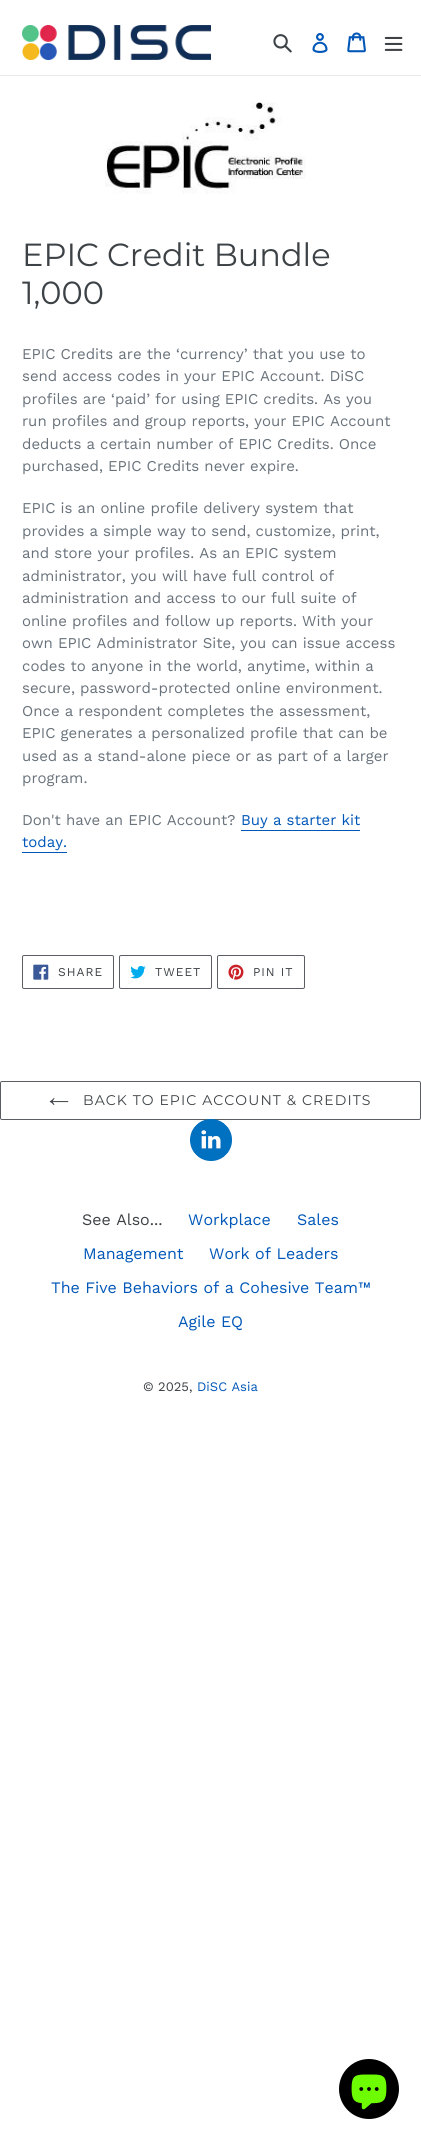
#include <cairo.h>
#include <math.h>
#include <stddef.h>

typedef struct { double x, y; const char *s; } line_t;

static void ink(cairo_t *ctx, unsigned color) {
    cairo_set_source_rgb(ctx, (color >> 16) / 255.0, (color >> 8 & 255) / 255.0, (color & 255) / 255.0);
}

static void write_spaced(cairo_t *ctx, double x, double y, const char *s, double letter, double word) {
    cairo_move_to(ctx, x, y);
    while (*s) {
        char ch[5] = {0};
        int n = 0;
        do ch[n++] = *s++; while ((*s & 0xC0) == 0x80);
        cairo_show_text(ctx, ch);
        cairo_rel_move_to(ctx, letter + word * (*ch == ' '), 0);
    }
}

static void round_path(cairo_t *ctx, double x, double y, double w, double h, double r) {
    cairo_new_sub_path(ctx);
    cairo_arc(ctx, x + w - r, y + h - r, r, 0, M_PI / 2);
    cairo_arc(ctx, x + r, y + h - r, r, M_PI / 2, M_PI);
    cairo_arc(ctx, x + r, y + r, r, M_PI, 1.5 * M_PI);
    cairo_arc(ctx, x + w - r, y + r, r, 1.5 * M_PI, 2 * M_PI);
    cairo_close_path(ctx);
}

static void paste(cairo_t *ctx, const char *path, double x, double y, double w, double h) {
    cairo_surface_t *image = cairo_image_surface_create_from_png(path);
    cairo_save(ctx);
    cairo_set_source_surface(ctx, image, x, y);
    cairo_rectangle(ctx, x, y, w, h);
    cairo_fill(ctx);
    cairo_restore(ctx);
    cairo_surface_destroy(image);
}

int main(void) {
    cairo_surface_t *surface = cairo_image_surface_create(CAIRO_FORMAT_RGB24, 421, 2140);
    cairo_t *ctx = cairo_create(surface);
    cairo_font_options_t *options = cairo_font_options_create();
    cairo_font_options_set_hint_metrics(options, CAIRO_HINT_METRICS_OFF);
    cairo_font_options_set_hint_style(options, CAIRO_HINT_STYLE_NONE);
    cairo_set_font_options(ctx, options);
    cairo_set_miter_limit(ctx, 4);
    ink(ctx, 0xFFFFFF);
    cairo_paint(ctx);
    ink(ctx, 0xE8E9EB);
    cairo_rectangle(ctx, 0, 75, 421, 1);
    cairo_fill(ctx);
    paste(ctx, "media/1.png", 22, 25, 189, 35);
    paste(ctx, "media/2.png", 273, 34, 19, 19);
    paste(ctx, "media/3.png", 312, 33, 16, 20);
    paste(ctx, "media/4.png", 347, 32, 19, 21);
    paste(ctx, "media/5.png", 384, 36, 19, 15);
    paste(ctx, "media/6.png", 105, 102, 201, 92);
    cairo_select_font_face(ctx, "Montserrat Thin", CAIRO_FONT_SLANT_NORMAL, CAIRO_FONT_WEIGHT_NORMAL);
    cairo_set_font_size(ctx, 32);
    ink(ctx, 0x3D4246);
    cairo_move_to(ctx, 22, 266);
    cairo_show_text(ctx, "EPIC Credit Bundle");
    cairo_move_to(ctx, 22, 304);
    cairo_show_text(ctx, "1,000");
    cairo_select_font_face(ctx, "Work Sans", CAIRO_FONT_SLANT_NORMAL, CAIRO_FONT_WEIGHT_NORMAL);
    cairo_set_font_size(ctx, 15);
    ink(ctx, 0x69727B);
    {
        static const line_t items[] = {
            {22, 359, "EPIC Credits are the ‘currency’ that you use to"},
            {22, 381, "send access codes in your EPIC Account. DiSC"},
            {22, 404, "profiles are ‘paid’ for using EPIC credits. As you"},
            {22, 426, "run profiles and group reports, your EPIC Account"},
            {22, 449, "deducts a certain number of EPIC Credits. Once"},
            {22, 471, "purchased, EPIC Credits never expire."},
            {22, 513, "EPIC is an online profile delivery system that"},
            {22, 536, "provides a simple way to send, customize, print,"},
            {22, 558, "and store your profiles. As an EPIC system"},
            {22, 581, "administrator, you will have full control of"},
            {22, 603, "administration and access to our full suite of"},
            {22, 626, "online profiles and follow up reports. With your"},
            {22, 648, "own EPIC Administrator Site, you can issue access"},
            {22, 671, "codes to anyone in the world, anytime, within a"},
            {22, 693, "secure, password-protected online environment."},
            {22, 716, "Once a respondent completes the assessment,"},
            {22, 738, "EPIC generates a personalized profile that can be"},
            {22, 761, "used as a stand-alone piece or as part of a larger"},
            {22, 783, "program."},
            {22, 825, "Don't have an EPIC Account?"},
        };
        for (size_t i = 0; i < sizeof items / sizeof *items; i++) {
            cairo_move_to(ctx, items[i].x, items[i].y);
            cairo_show_text(ctx, items[i].s);
        }
    }
    ink(ctx, 0x0057B8);
    cairo_move_to(ctx, 241, 825);
    cairo_show_text(ctx, "Buy a starter kit");
    cairo_rectangle(ctx, 241, 830, 119, 1);
    cairo_fill(ctx);
    cairo_move_to(ctx, 22, 847);
    cairo_show_text(ctx, "today.");
    cairo_rectangle(ctx, 22, 852, 45, 1);
    cairo_fill(ctx);
    round_path(ctx, 22.5, 955.5, 91, 33, 1.5);
    ink(ctx, 0x5A5E62);
    cairo_set_line_width(ctx, 1);
    cairo_stroke(ctx);
    paste(ctx, "media/7.png", 33, 964, 16, 16);
    cairo_set_font_size(ctx, 12);
    ink(ctx, 0x3D4246);
    write_spaced(ctx, 58, 976, "SHARE", 1, 0);
    round_path(ctx, 119.5, 955.5, 92, 33, 1.5);
    ink(ctx, 0x5A5E62);
    cairo_stroke(ctx);
    paste(ctx, "media/8.png", 130, 965, 16, 14);
    ink(ctx, 0x3D4246);
    write_spaced(ctx, 155, 976, "TWEET", 1, 0);
    round_path(ctx, 217.5, 955.5, 87, 33, 1.5);
    ink(ctx, 0x5A5E62);
    cairo_stroke(ctx);
    paste(ctx, "media/9.png", 228, 964, 16, 16);
    ink(ctx, 0x3D4246);
    write_spaced(ctx, 253, 976, "PIN IT", 1, 0);
    round_path(ctx, 0.5, 1081.5, 420, 38, 1.5);
    ink(ctx, 0x5A5E62);
    cairo_stroke(ctx);
    paste(ctx, "media/10.png", 49, 1098, 20, 8);
    cairo_select_font_face(ctx, "Montserrat Thin", CAIRO_FONT_SLANT_NORMAL, CAIRO_FONT_WEIGHT_NORMAL);
    cairo_set_font_size(ctx, 14);
    ink(ctx, 0x3D4246);
    write_spaced(ctx, 83, 1105, "BACK TO EPIC ACCOUNT & CREDITS", 1.1, 0);
    paste(ctx, "media/11.png", 190, 1119, 42, 42);
    cairo_select_font_face(ctx, "Work Sans", CAIRO_FONT_SLANT_NORMAL, CAIRO_FONT_WEIGHT_NORMAL);
    cairo_set_font_size(ctx, 16);
    cairo_move_to(ctx, 82, 1225);
    cairo_show_text(ctx, "See Also...");
    ink(ctx, 0x0057B8);
    {
        static const line_t items[] = {
            {188, 1225, "Workplace"},
            {297, 1225, "Sales"},
            {83, 1259, "Management"},
            {209, 1259, "Work of Leaders"},
            {51, 1293, "The Five Behaviors of a Cohesive Team™"},
            {178, 1327, "Agile EQ"},
        };
        for (size_t i = 0; i < sizeof items / sizeof *items; i++) {
            cairo_move_to(ctx, items[i].x, items[i].y);
            cairo_show_text(ctx, items[i].s);
        }
    }
    cairo_set_font_size(ctx, 13);
    ink(ctx, 0x3D4246);
    cairo_move_to(ctx, 143, 1391);
    cairo_show_text(ctx, "© 2025,");
    ink(ctx, 0x0057B8);
    cairo_move_to(ctx, 197, 1391);
    cairo_show_text(ctx, "DiSC Asia");
    ink(ctx, 0x000000);
    cairo_new_path(ctx);
    cairo_arc(ctx, 369, 2089, 30, 0, 2 * M_PI);
    cairo_fill(ctx);
    paste(ctx, "media/12.png", 351, 2074, 36, 36);
    cairo_surface_write_to_png(surface, "image.png");
    cairo_font_options_destroy(options);
    cairo_destroy(ctx);
    cairo_surface_destroy(surface);
    return 0;
}
